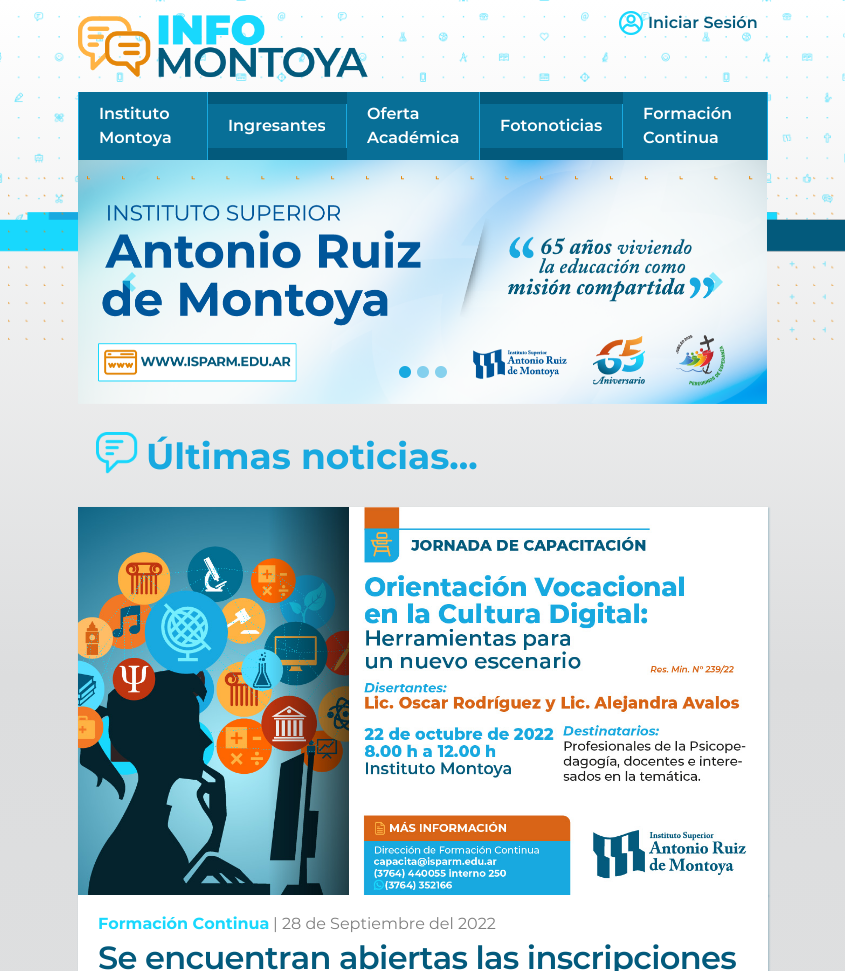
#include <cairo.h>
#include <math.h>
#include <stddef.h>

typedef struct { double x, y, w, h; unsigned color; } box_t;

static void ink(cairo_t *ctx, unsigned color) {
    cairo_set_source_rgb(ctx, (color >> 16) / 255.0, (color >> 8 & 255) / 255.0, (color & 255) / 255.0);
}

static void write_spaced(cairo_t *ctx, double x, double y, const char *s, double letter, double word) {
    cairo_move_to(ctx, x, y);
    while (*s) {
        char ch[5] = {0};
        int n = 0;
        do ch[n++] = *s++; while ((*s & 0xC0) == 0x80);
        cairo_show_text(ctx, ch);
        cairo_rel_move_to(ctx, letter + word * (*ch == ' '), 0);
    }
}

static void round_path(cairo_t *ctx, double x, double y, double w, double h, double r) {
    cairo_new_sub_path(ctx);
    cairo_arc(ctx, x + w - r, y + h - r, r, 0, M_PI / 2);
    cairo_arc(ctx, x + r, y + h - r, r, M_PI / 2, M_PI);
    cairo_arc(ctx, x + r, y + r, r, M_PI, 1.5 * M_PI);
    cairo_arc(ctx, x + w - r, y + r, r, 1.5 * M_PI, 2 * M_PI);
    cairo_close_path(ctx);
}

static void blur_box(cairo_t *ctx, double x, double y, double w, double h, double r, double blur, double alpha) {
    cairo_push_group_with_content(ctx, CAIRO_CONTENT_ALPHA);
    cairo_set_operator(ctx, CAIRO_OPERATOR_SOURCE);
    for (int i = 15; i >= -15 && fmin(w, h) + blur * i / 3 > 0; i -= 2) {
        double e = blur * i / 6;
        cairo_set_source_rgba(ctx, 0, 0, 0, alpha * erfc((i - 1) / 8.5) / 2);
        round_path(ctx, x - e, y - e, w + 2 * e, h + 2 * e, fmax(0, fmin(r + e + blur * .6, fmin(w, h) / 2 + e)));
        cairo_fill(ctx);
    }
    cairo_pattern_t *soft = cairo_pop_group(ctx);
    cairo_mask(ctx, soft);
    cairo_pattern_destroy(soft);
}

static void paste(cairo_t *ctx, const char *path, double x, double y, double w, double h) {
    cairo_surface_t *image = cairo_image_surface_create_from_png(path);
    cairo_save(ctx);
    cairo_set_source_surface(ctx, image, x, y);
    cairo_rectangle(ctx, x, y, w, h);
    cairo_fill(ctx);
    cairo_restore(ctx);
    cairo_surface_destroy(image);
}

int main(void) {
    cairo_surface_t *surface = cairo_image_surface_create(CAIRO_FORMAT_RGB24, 845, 971);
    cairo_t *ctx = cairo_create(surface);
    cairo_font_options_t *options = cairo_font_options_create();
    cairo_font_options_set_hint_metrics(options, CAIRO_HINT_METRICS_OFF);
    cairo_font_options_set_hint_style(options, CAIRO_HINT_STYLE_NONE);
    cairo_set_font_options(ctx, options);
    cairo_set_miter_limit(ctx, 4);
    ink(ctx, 0xFFFFFF);
    cairo_paint(ctx);
    paste(ctx, "media/1.png", 0, 0, 845, 971);
    paste(ctx, "media/2.png", 78, 15, 290, 63);
    paste(ctx, "media/3.png", 619, 11, 24, 24);
    cairo_select_font_face(ctx, "Montserrat SemiBold", CAIRO_FONT_SLANT_NORMAL, CAIRO_FONT_WEIGHT_NORMAL);
    cairo_set_font_size(ctx, 16);
    ink(ctx, 0x035A7C);
    cairo_move_to(ctx, 648, 28);
    cairo_show_text(ctx, "Iniciar Sesión");
    {
        static const box_t items[] = {
            {208, 92, 415, 68, 0x035A7C},
            {78, 92, 1, 68, 0x18A9E0},
            {79, 92, 128, 68, 0x086F97},
            {207, 92, 1, 68, 0x18A9E0},
        };
        for (size_t i = 0; i < sizeof items / sizeof *items; i++) {
            ink(ctx, items[i].color);
            cairo_rectangle(ctx, items[i].x, items[i].y, items[i].w, items[i].h);
            cairo_fill(ctx);
        }
    }
    ink(ctx, 0xFFFFFF);
    cairo_move_to(ctx, 99, 119);
    cairo_show_text(ctx, "Instituto");
    cairo_move_to(ctx, 99, 143);
    cairo_show_text(ctx, "Montoya");
    ink(ctx, 0x086F97);
    cairo_rectangle(ctx, 208, 104, 138, 44);
    cairo_fill(ctx);
    ink(ctx, 0x18A9E0);
    cairo_rectangle(ctx, 346, 104, 1, 44);
    cairo_fill(ctx);
    ink(ctx, 0xFFFFFF);
    cairo_move_to(ctx, 228, 131);
    cairo_show_text(ctx, "Ingresantes");
    ink(ctx, 0x086F97);
    cairo_rectangle(ctx, 347, 92, 132, 68);
    cairo_fill(ctx);
    ink(ctx, 0x18A9E0);
    cairo_rectangle(ctx, 479, 92, 1, 68);
    cairo_fill(ctx);
    ink(ctx, 0xFFFFFF);
    cairo_move_to(ctx, 367, 119);
    cairo_show_text(ctx, "Oferta");
    cairo_move_to(ctx, 367, 143);
    cairo_show_text(ctx, "Académica");
    ink(ctx, 0x086F97);
    cairo_rectangle(ctx, 480, 104, 142, 44);
    cairo_fill(ctx);
    ink(ctx, 0x18A9E0);
    cairo_rectangle(ctx, 622, 104, 1, 44);
    cairo_fill(ctx);
    ink(ctx, 0xFFFFFF);
    cairo_move_to(ctx, 500, 131);
    cairo_show_text(ctx, "Fotonoticias");
    ink(ctx, 0x086F97);
    cairo_rectangle(ctx, 623, 92, 144, 68);
    cairo_fill(ctx);
    ink(ctx, 0x18A9E0);
    cairo_rectangle(ctx, 767, 92, 1, 68);
    cairo_fill(ctx);
    ink(ctx, 0xFFFFFF);
    cairo_move_to(ctx, 643, 119);
    cairo_show_text(ctx, "Formación");
    cairo_move_to(ctx, 643, 143);
    cairo_show_text(ctx, "Continua");
    paste(ctx, "media/4.png", 78, 160, 689, 244);
    cairo_set_source_rgba(ctx, 0.094, 0.847, 0.992, 0.5);
    cairo_new_path(ctx);
    cairo_move_to(ctx, 132, 272);
    cairo_line_to(ctx, 122, 282);
    cairo_line_to(ctx, 132, 292);
    cairo_line_to(ctx, 136, 288);
    cairo_line_to(ctx, 129.5, 282);
    cairo_line_to(ctx, 136, 276);
    cairo_close_path(ctx);
    cairo_fill(ctx);
    cairo_new_path(ctx);
    cairo_move_to(ctx, 713, 272);
    cairo_line_to(ctx, 709, 276);
    cairo_line_to(ctx, 715.5, 282);
    cairo_line_to(ctx, 709, 288);
    cairo_line_to(ctx, 713, 292);
    cairo_line_to(ctx, 723, 282);
    cairo_close_path(ctx);
    cairo_fill(ctx);
    ink(ctx, 0x18A9E0);
    cairo_arc(ctx, 405, 372, 6, 0, 2 * M_PI);
    cairo_fill(ctx);
    cairo_set_source_rgba(ctx, 0.094, 0.663, 0.878, 0.5);
    cairo_arc(ctx, 423, 372, 6, 0, 2 * M_PI);
    cairo_fill(ctx);
    cairo_arc(ctx, 441, 372, 6, 0, 2 * M_PI);
    cairo_fill(ctx);
    paste(ctx, "media/5.png", 96, 432, 42, 42);
    cairo_select_font_face(ctx, "Montserrat", CAIRO_FONT_SLANT_NORMAL, CAIRO_FONT_WEIGHT_BOLD);
    cairo_set_font_size(ctx, 36);
    ink(ctx, 0x18A9E0);
    cairo_move_to(ctx, 146, 469);
    cairo_show_text(ctx, "Últimas noticias...");
    ink(ctx, 0x035A7C);
    blur_box(ctx, 79, 508, 690, 388, 0, 1, 0.3);
    blur_box(ctx, 79, 896, 690, 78, 0, 1, 0.3);
    paste(ctx, "media/6.png", 78, 507, 690, 388);
    ink(ctx, 0xFFFFFF);
    cairo_rectangle(ctx, 78, 895, 690, 76);
    cairo_fill(ctx);
    cairo_set_font_size(ctx, 16);
    ink(ctx, 0x18D8FD);
    cairo_move_to(ctx, 98, 929);
    cairo_show_text(ctx, "Formación Continua");
    cairo_select_font_face(ctx, "Montserrat", CAIRO_FONT_SLANT_NORMAL, CAIRO_FONT_WEIGHT_NORMAL);
    ink(ctx, 0x808080);
    cairo_move_to(ctx, 273, 929);
    cairo_show_text(ctx, "| 28 de Septiembre del 2022");
    cairo_select_font_face(ctx, "Montserrat SemiBold", CAIRO_FONT_SLANT_NORMAL, CAIRO_FONT_WEIGHT_NORMAL);
    cairo_set_font_size(ctx, 32);
    ink(ctx, 0x035A7C);
    write_spaced(ctx, 98, 969, "Se encuentran abiertas las inscripciones", -0.65, 0);
    cairo_surface_write_to_png(surface, "image.png");
    cairo_font_options_destroy(options);
    cairo_destroy(ctx);
    cairo_surface_destroy(surface);
    return 0;
}
